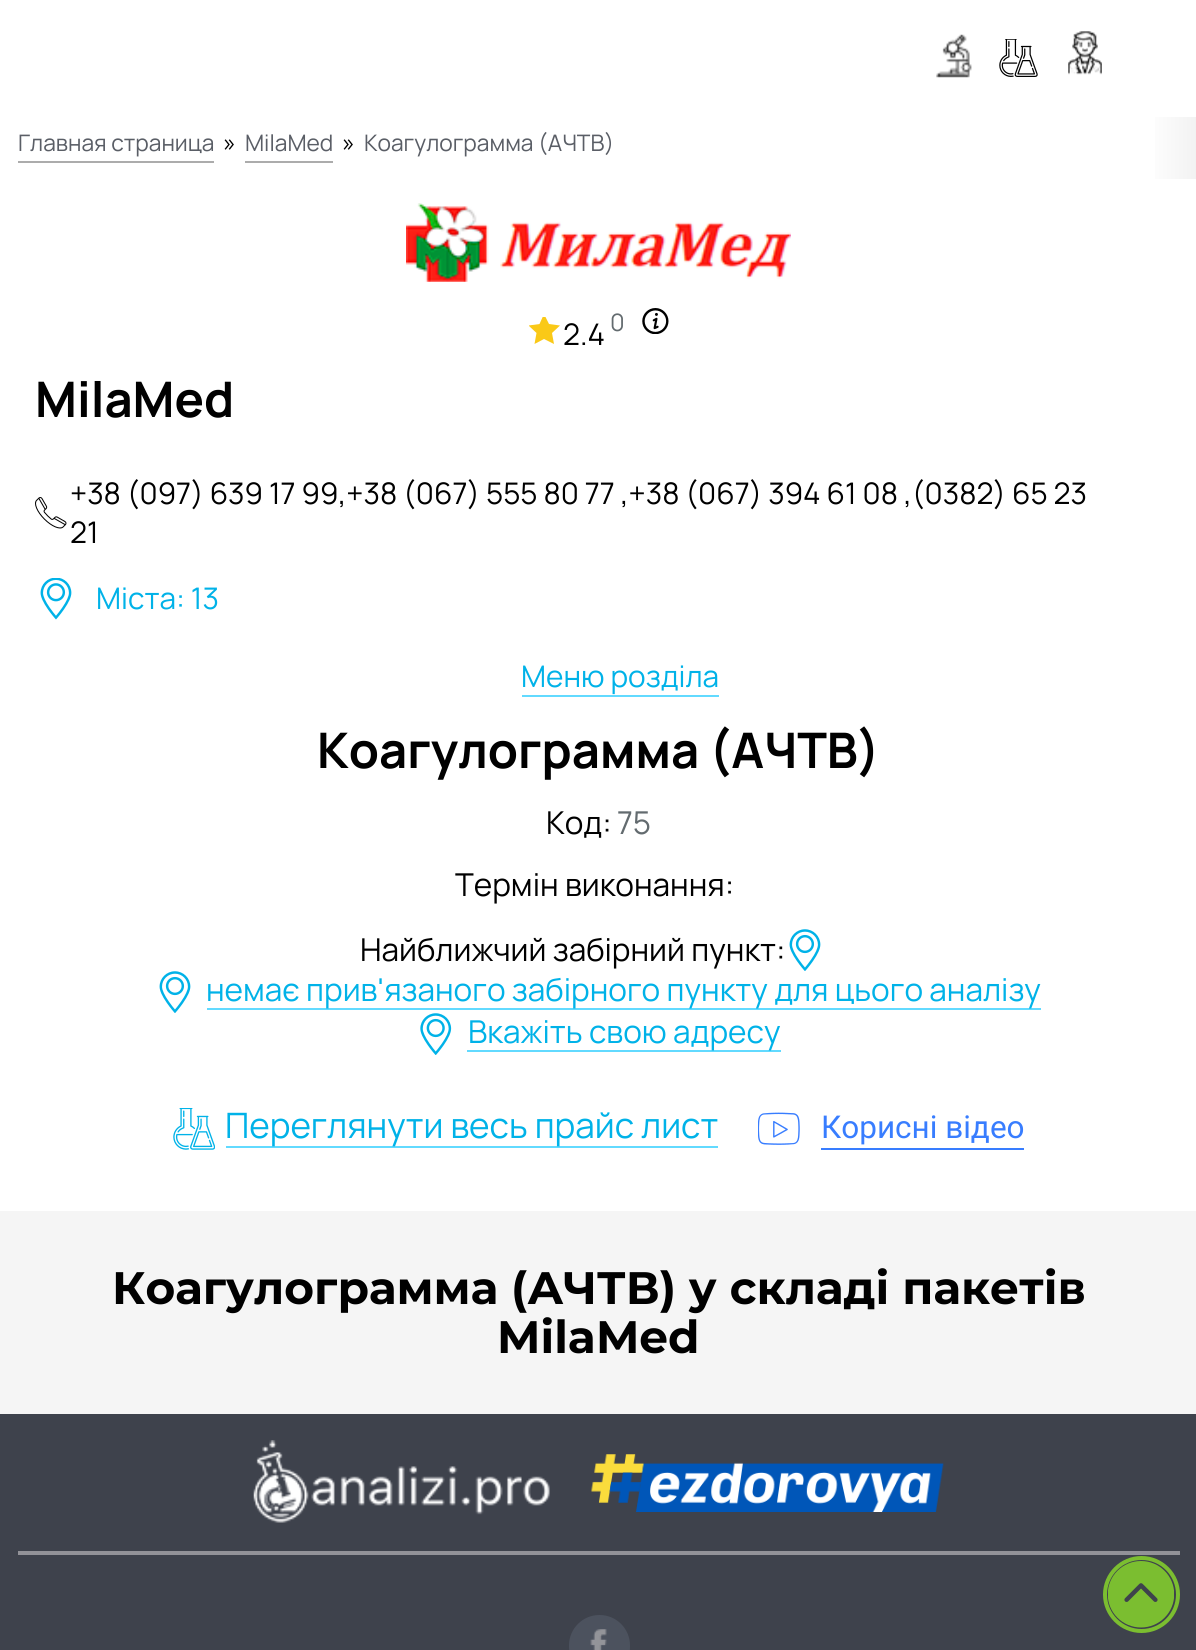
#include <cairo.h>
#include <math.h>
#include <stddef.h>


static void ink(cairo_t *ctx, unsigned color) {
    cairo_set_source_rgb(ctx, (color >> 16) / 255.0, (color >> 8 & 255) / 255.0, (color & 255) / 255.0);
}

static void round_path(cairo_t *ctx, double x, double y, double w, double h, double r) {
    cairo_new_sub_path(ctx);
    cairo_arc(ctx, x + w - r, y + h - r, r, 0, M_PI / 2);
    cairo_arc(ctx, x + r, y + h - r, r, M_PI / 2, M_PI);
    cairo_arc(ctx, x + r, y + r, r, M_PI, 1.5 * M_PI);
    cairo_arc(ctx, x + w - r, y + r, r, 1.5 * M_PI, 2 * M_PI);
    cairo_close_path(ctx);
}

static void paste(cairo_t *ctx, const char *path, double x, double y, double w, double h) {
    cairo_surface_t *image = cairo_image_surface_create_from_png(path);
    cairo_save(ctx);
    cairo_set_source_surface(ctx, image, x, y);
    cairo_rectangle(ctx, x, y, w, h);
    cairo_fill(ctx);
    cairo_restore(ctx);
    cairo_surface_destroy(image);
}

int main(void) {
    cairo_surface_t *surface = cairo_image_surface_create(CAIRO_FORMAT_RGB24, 1196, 1650);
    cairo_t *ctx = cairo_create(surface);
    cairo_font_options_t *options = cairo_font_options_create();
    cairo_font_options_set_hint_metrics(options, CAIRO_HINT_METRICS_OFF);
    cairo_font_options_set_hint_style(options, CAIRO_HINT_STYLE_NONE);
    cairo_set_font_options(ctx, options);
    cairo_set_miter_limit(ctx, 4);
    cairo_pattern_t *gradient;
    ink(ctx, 0xFFFFFF);
    cairo_paint(ctx);
    paste(ctx, "media/1.png", 936, 34, 36, 44);
    paste(ctx, "media/2.png", 999, 39, 39, 38);
    paste(ctx, "media/3.png", 1068, 31, 34, 44);
    ink(ctx, 0xACACAC);
    cairo_rectangle(ctx, 18, 161, 196, 2);
    cairo_fill(ctx);
    cairo_select_font_face(ctx, "Manrope", CAIRO_FONT_SLANT_NORMAL, CAIRO_FONT_WEIGHT_NORMAL);
    cairo_set_font_size(ctx, 22.75);
    ink(ctx, 0x5A5E66);
    cairo_move_to(ctx, 18, 151);
    cairo_show_text(ctx, "Главная страница");
    cairo_set_font_size(ctx, 24);
    ink(ctx, 0x000000);
    cairo_move_to(ctx, 223, 151);
    cairo_show_text(ctx, "»");
    ink(ctx, 0xACACAC);
    cairo_rectangle(ctx, 245, 161, 88, 2);
    cairo_fill(ctx);
    cairo_set_font_size(ctx, 22.75);
    ink(ctx, 0x5A5E66);
    cairo_move_to(ctx, 245, 151);
    cairo_show_text(ctx, "MilaMed");
    cairo_set_font_size(ctx, 24);
    ink(ctx, 0x000000);
    cairo_move_to(ctx, 342, 151);
    cairo_show_text(ctx, "»");
    cairo_set_font_size(ctx, 22.75);
    ink(ctx, 0x5A5E66);
    cairo_move_to(ctx, 364, 151);
    cairo_show_text(ctx, "Коагулограмма (АЧТВ)");
    gradient = cairo_pattern_create_linear(1145, 143, 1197, 143);
    cairo_pattern_add_color_stop_rgba(gradient, 0, 1, 1, 1, 1);
    cairo_pattern_add_color_stop_rgba(gradient, 1, 0.949, 0.949, 0.949, 1);
    cairo_set_source(ctx, gradient);
    cairo_pattern_destroy(gradient);
    cairo_rectangle(ctx, 1155, 117, 41, 62);
    cairo_fill(ctx);
    paste(ctx, "media/4.png", 406, 203, 385, 79);
    cairo_save(ctx);
    cairo_rectangle(ctx, 529, 317, 31, 28);
    cairo_clip(ctx);
    ink(ctx, 0xFAC917);
    cairo_new_path(ctx);
    cairo_move_to(ctx, 544, 314);
    cairo_line_to(ctx, 549, 324);
    cairo_line_to(ctx, 560, 325.5);
    cairo_line_to(ctx, 552, 333);
    cairo_line_to(ctx, 554, 344);
    cairo_line_to(ctx, 544, 339);
    cairo_line_to(ctx, 534.5, 344);
    cairo_line_to(ctx, 536.5, 333);
    cairo_line_to(ctx, 528.5, 325.5);
    cairo_line_to(ctx, 539.5, 324);
    cairo_close_path(ctx);
    cairo_fill(ctx);
    cairo_restore(ctx);
    cairo_set_font_size(ctx, 29.75);
    ink(ctx, 0x000000);
    cairo_move_to(ctx, 563, 345);
    cairo_show_text(ctx, "2.4");
    paste(ctx, "media/5.png", 642, 308, 27, 26);
    cairo_set_font_size(ctx, 24);
    ink(ctx, 0x636B6F);
    cairo_move_to(ctx, 610, 331);
    cairo_show_text(ctx, "0");
    cairo_select_font_face(ctx, "Manrope", CAIRO_FONT_SLANT_NORMAL, CAIRO_FONT_WEIGHT_BOLD);
    cairo_set_font_size(ctx, 49);
    ink(ctx, 0x000000);
    cairo_move_to(ctx, 35, 417);
    cairo_show_text(ctx, "MilaMed");
    paste(ctx, "media/6.png", 35, 497, 32, 32);
    cairo_select_font_face(ctx, "Manrope", CAIRO_FONT_SLANT_NORMAL, CAIRO_FONT_WEIGHT_NORMAL);
    cairo_set_font_size(ctx, 29.75);
    cairo_move_to(ctx, 70, 504);
    cairo_show_text(ctx, "+38 (097) 639 17 99,+38 (067) 555 80 77 ,+38 (067) 394 61 08 ,(0382) 65 23");
    cairo_move_to(ctx, 70, 543);
    cairo_show_text(ctx, "21");
    paste(ctx, "media/7.png", 40, 578, 32, 42);
    ink(ctx, 0x00B2E8);
    cairo_move_to(ctx, 96, 609);
    cairo_show_text(ctx, "Міста: 13");
    ink(ctx, 0x62DAFF);
    cairo_rectangle(ctx, 522, 695, 197, 2);
    cairo_fill(ctx);
    ink(ctx, 0x00B2E8);
    cairo_move_to(ctx, 521, 687);
    cairo_show_text(ctx, "Меню розділа");
    cairo_select_font_face(ctx, "Manrope", CAIRO_FONT_SLANT_NORMAL, CAIRO_FONT_WEIGHT_BOLD);
    cairo_set_font_size(ctx, 49);
    ink(ctx, 0x000000);
    cairo_move_to(ctx, 317, 768);
    cairo_show_text(ctx, "Коагулограмма (АЧТВ)");
    cairo_select_font_face(ctx, "Manrope", CAIRO_FONT_SLANT_NORMAL, CAIRO_FONT_WEIGHT_NORMAL);
    cairo_set_font_size(ctx, 31.5);
    cairo_move_to(ctx, 546, 834);
    cairo_show_text(ctx, "Код:");
    ink(ctx, 0x636B6F);
    cairo_move_to(ctx, 617, 834);
    cairo_show_text(ctx, "75");
    ink(ctx, 0x000000);
    cairo_move_to(ctx, 455, 896);
    cairo_show_text(ctx, "Термін виконання:");
    cairo_move_to(ctx, 360, 961);
    cairo_show_text(ctx, "Найближчий забірний пункт:");
    paste(ctx, "media/8.png", 789, 929, 32, 42);
    ink(ctx, 0x62DAFF);
    cairo_rectangle(ctx, 207, 1008, 834, 2);
    cairo_fill(ctx);
    paste(ctx, "media/8.png", 159, 971, 32, 42);
    ink(ctx, 0x00B2E8);
    cairo_move_to(ctx, 206, 1001);
    cairo_show_text(ctx, "немає прив'язаного забірного пункту для цього аналізу");
    ink(ctx, 0x62DAFF);
    cairo_rectangle(ctx, 467, 1050, 314, 2);
    cairo_fill(ctx);
    paste(ctx, "media/9.png", 420, 1013, 32, 42);
    ink(ctx, 0x00B2E8);
    cairo_move_to(ctx, 468, 1043);
    cairo_show_text(ctx, "Вкажіть свою адресу");
    paste(ctx, "media/10.png", 173, 1108, 42, 42);
    ink(ctx, 0x62DAFF);
    cairo_rectangle(ctx, 226, 1146, 492, 2);
    cairo_fill(ctx);
    cairo_set_font_size(ctx, 35);
    ink(ctx, 0x00B2E8);
    cairo_move_to(ctx, 225, 1138);
    cairo_show_text(ctx, "Переглянути весь прайс лист");
    paste(ctx, "media/11.png", 758, 1112, 42, 33);
    ink(ctx, 0x387DFF);
    cairo_rectangle(ctx, 821, 1148, 203, 2);
    cairo_fill(ctx);
    cairo_select_font_face(ctx, "Roboto", CAIRO_FONT_SLANT_NORMAL, CAIRO_FONT_WEIGHT_NORMAL);
    cairo_set_font_size(ctx, 31.5);
    cairo_move_to(ctx, 821, 1138);
    cairo_show_text(ctx, "Корисні відео");
    ink(ctx, 0xF5F5F5);
    cairo_rectangle(ctx, 0, 1211, 1196, 203);
    cairo_fill(ctx);
    cairo_select_font_face(ctx, "Montserrat Thin", CAIRO_FONT_SLANT_NORMAL, CAIRO_FONT_WEIGHT_NORMAL);
    cairo_set_font_size(ctx, 45.5);
    ink(ctx, 0x000000);
    cairo_move_to(ctx, 112, 1304);
    cairo_show_text(ctx, "Коагулограмма (АЧТВ) у складі пакетів");
    cairo_move_to(ctx, 497, 1353);
    cairo_show_text(ctx, "MilaMed");
    ink(ctx, 0x3E424C);
    cairo_rectangle(ctx, 0, 1414, 1196, 236);
    cairo_fill(ctx);
    ink(ctx, 0x929298);
    cairo_rectangle(ctx, 18, 1551, 1162, 4);
    cairo_fill(ctx);
    paste(ctx, "media/12.png", 253, 1440, 297, 83);
    paste(ctx, "media/13.png", 591, 1454, 353, 58);
    ink(ctx, 0x4C525E);
    round_path(ctx, 569, 1615, 61, 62, 30.5);
    cairo_fill(ctx);
    paste(ctx, "media/14.png", 590, 1629, 17, 21);
    paste(ctx, "media/15.png", 1108, 1561, 66, 67);
    cairo_arc(ctx, 1141.5, 1594.5, 36.5, 0, 2 * M_PI);
    ink(ctx, 0x7BBE30);
    cairo_set_line_width(ctx, 4);
    cairo_stroke(ctx);
    cairo_surface_write_to_png(surface, "image.png");
    cairo_font_options_destroy(options);
    cairo_destroy(ctx);
    cairo_surface_destroy(surface);
    return 0;
}
